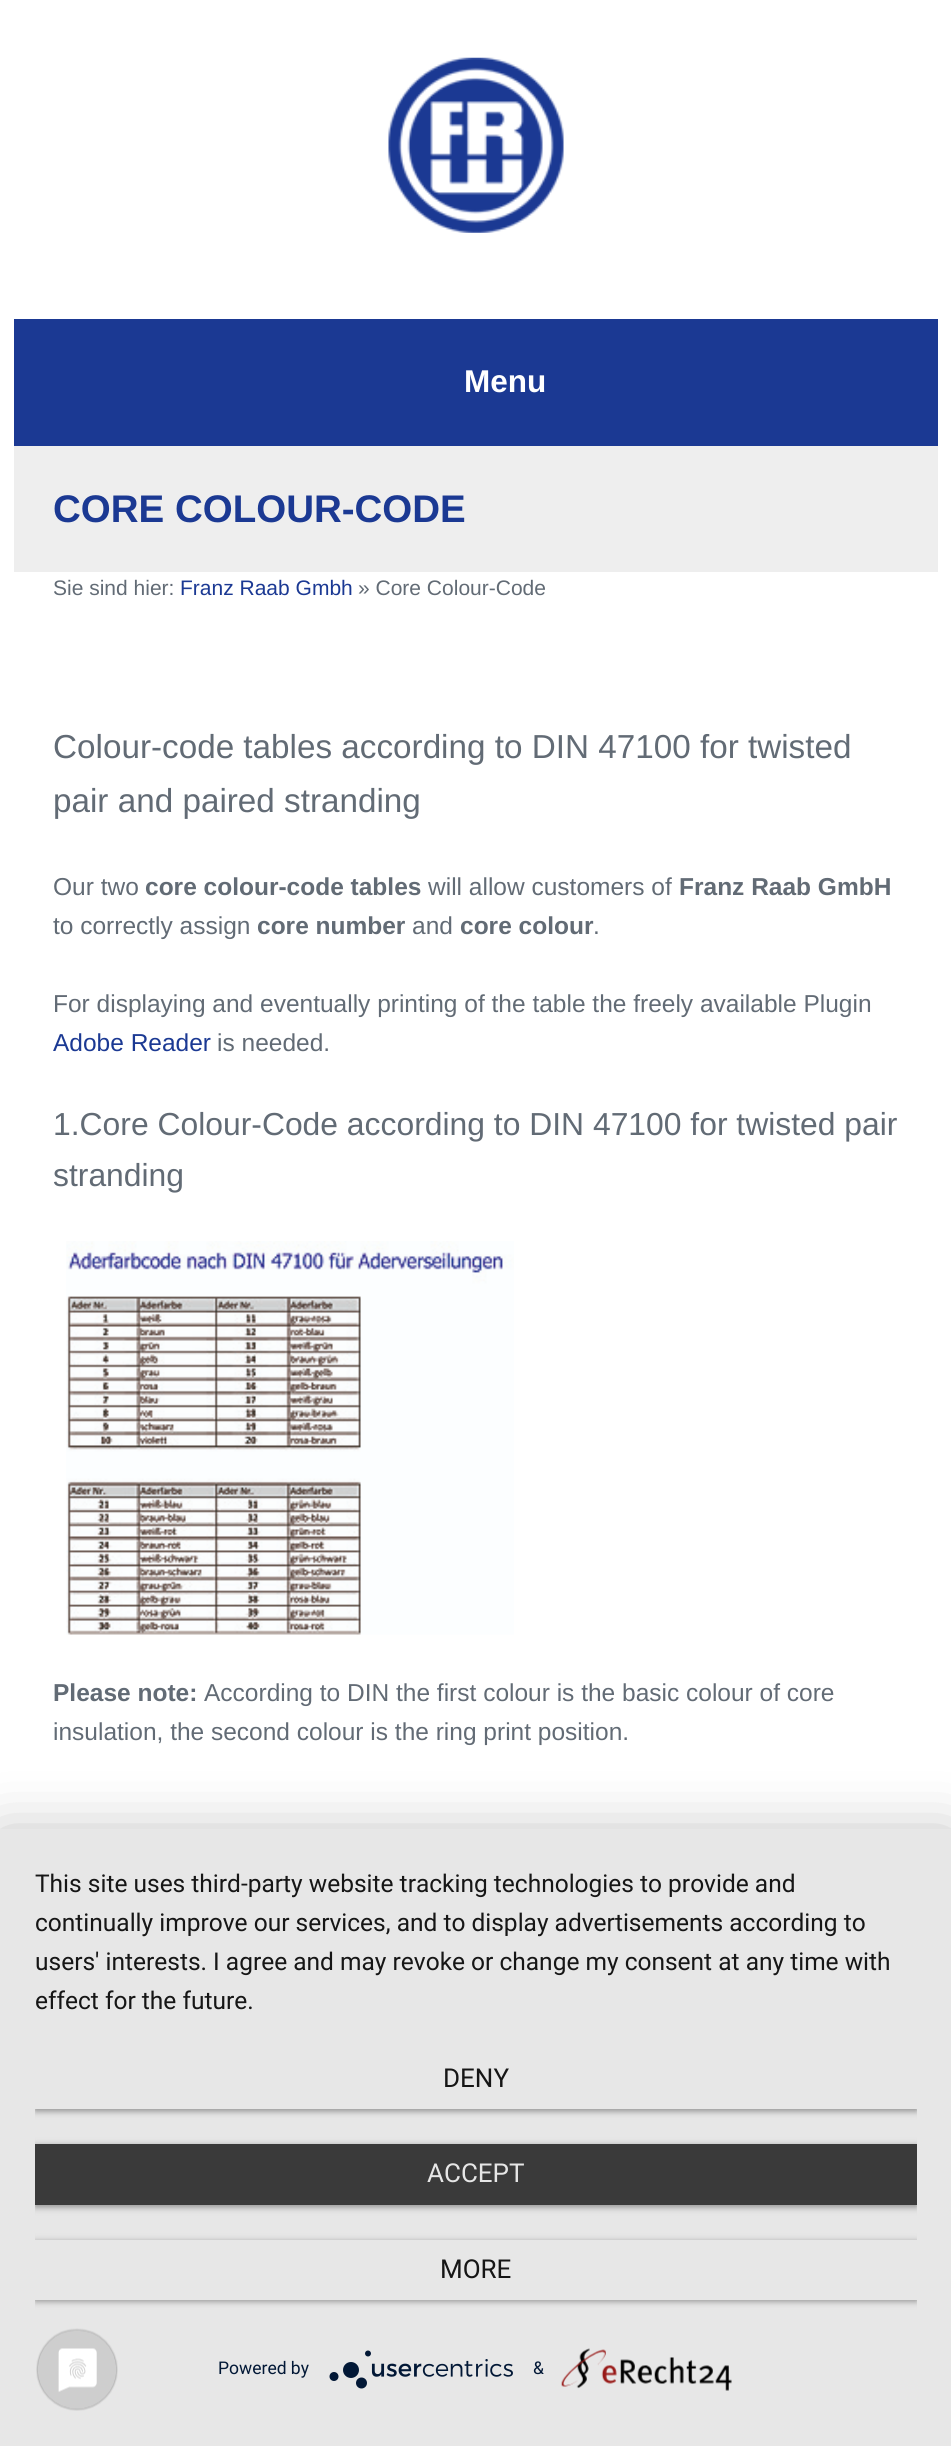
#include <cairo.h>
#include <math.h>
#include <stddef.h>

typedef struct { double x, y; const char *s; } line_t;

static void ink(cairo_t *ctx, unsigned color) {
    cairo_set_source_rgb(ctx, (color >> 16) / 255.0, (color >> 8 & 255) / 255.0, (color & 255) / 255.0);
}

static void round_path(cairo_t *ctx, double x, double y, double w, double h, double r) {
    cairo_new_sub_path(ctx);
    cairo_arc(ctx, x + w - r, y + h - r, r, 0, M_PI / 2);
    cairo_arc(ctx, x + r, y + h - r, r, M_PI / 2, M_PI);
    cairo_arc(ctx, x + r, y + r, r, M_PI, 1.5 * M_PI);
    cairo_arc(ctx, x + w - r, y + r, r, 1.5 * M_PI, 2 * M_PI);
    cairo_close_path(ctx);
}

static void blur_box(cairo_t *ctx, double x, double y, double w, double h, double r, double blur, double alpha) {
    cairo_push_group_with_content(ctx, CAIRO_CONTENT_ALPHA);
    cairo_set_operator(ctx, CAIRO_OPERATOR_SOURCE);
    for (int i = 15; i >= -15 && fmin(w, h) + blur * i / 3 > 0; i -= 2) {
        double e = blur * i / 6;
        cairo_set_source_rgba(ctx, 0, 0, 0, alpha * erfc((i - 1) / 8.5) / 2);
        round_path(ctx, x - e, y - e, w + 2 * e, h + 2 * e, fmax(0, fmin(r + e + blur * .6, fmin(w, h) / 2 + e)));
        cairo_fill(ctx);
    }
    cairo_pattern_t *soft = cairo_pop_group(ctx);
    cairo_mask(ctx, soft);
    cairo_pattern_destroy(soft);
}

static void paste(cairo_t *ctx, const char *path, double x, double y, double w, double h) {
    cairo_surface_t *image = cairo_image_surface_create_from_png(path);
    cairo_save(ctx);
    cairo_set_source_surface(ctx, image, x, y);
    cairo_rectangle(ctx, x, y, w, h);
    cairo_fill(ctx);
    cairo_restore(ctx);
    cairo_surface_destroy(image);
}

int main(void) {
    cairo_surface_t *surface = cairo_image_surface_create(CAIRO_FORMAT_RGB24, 951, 2446);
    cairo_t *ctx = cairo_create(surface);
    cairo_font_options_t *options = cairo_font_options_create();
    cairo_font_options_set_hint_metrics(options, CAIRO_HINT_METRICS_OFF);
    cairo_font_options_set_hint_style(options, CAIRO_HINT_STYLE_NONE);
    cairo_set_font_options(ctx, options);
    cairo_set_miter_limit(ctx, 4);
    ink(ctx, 0xFFFFFF);
    cairo_paint(ctx);
    paste(ctx, "media/1.png", 388, 57, 176, 176);
    ink(ctx, 0x1B3993);
    cairo_rectangle(ctx, 14, 319, 924, 127);
    cairo_fill(ctx);
    cairo_select_font_face(ctx, "Arimo", CAIRO_FONT_SLANT_NORMAL, CAIRO_FONT_WEIGHT_BOLD);
    cairo_set_font_size(ctx, 31.5);
    ink(ctx, 0xFFFFFF);
    cairo_move_to(ctx, 464, 392);
    cairo_show_text(ctx, "Menu");
    ink(ctx, 0xEEEEEE);
    cairo_rectangle(ctx, 14, 446, 924, 126);
    cairo_fill(ctx);
    cairo_set_font_size(ctx, 38.5);
    ink(ctx, 0x1B3993);
    cairo_move_to(ctx, 53, 522);
    cairo_show_text(ctx, "CORE COLOUR-CODE");
    cairo_select_font_face(ctx, "Arimo", CAIRO_FONT_SLANT_NORMAL, CAIRO_FONT_WEIGHT_NORMAL);
    cairo_set_font_size(ctx, 21);
    ink(ctx, 0x626B75);
    cairo_move_to(ctx, 53, 595);
    cairo_show_text(ctx, "Sie sind hier:");
    ink(ctx, 0x1B3993);
    cairo_move_to(ctx, 180, 595);
    cairo_show_text(ctx, "Franz Raab Gmbh");
    ink(ctx, 0x626B75);
    cairo_move_to(ctx, 358, 595);
    cairo_show_text(ctx, "» Core Colour-Code");
    cairo_set_font_size(ctx, 33.25);
    cairo_move_to(ctx, 53, 758);
    cairo_show_text(ctx, "Colour-code tables according to DIN 47100 for twisted");
    cairo_move_to(ctx, 53, 812);
    cairo_show_text(ctx, "pair and paired stranding");
    cairo_set_font_size(ctx, 24.5);
    cairo_move_to(ctx, 53, 895);
    cairo_show_text(ctx, "Our two");
    cairo_select_font_face(ctx, "Arimo", CAIRO_FONT_SLANT_NORMAL, CAIRO_FONT_WEIGHT_BOLD);
    cairo_move_to(ctx, 145, 895);
    cairo_show_text(ctx, "core colour-code tables");
    cairo_select_font_face(ctx, "Arimo", CAIRO_FONT_SLANT_NORMAL, CAIRO_FONT_WEIGHT_NORMAL);
    cairo_move_to(ctx, 428, 895);
    cairo_show_text(ctx, "will allow customers of");
    cairo_select_font_face(ctx, "Arimo", CAIRO_FONT_SLANT_NORMAL, CAIRO_FONT_WEIGHT_BOLD);
    cairo_move_to(ctx, 679, 895);
    cairo_show_text(ctx, "Franz Raab GmbH");
    cairo_select_font_face(ctx, "Arimo", CAIRO_FONT_SLANT_NORMAL, CAIRO_FONT_WEIGHT_NORMAL);
    cairo_move_to(ctx, 53, 934);
    cairo_show_text(ctx, "to correctly assign");
    cairo_select_font_face(ctx, "Arimo", CAIRO_FONT_SLANT_NORMAL, CAIRO_FONT_WEIGHT_BOLD);
    cairo_move_to(ctx, 257, 934);
    cairo_show_text(ctx, "core number");
    cairo_select_font_face(ctx, "Arimo", CAIRO_FONT_SLANT_NORMAL, CAIRO_FONT_WEIGHT_NORMAL);
    cairo_move_to(ctx, 412, 934);
    cairo_show_text(ctx, "and");
    cairo_select_font_face(ctx, "Arimo", CAIRO_FONT_SLANT_NORMAL, CAIRO_FONT_WEIGHT_BOLD);
    cairo_move_to(ctx, 460, 934);
    cairo_show_text(ctx, "core colour");
    cairo_select_font_face(ctx, "Arimo", CAIRO_FONT_SLANT_NORMAL, CAIRO_FONT_WEIGHT_NORMAL);
    cairo_move_to(ctx, 593, 934);
    cairo_show_text(ctx, ".");
    cairo_move_to(ctx, 53, 1012);
    cairo_show_text(ctx, "For displaying and eventually printing of the table the freely available Plugin");
    ink(ctx, 0x1B3993);
    cairo_move_to(ctx, 53, 1051);
    cairo_show_text(ctx, "Adobe Reader");
    ink(ctx, 0x626B75);
    cairo_move_to(ctx, 217, 1051);
    cairo_show_text(ctx, "is needed.");
    cairo_set_font_size(ctx, 31.85);
    cairo_move_to(ctx, 53, 1135);
    cairo_show_text(ctx, "1.Core Colour-Code according to DIN 47100 for twisted pair");
    cairo_move_to(ctx, 53, 1186);
    cairo_show_text(ctx, "stranding");
    paste(ctx, "media/2.png", 66, 1241, 448, 394);
    cairo_select_font_face(ctx, "Arimo", CAIRO_FONT_SLANT_NORMAL, CAIRO_FONT_WEIGHT_BOLD);
    cairo_set_font_size(ctx, 24.5);
    cairo_move_to(ctx, 53, 1701);
    cairo_show_text(ctx, "Please note:");
    cairo_select_font_face(ctx, "Arimo", CAIRO_FONT_SLANT_NORMAL, CAIRO_FONT_WEIGHT_NORMAL);
    cairo_move_to(ctx, 204, 1701);
    cairo_show_text(ctx, "According to DIN the first colour is the basic colour of core");
    cairo_move_to(ctx, 53, 1740);
    cairo_show_text(ctx, "insulation, the second colour is the ring print position.");
    ink(ctx, 0x000000);
    blur_box(ctx, 0, 1839, 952, 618, 0, 31.5, 0.3);
    ink(ctx, 0xE7E7E7);
    cairo_rectangle(ctx, 0, 1829, 951, 617);
    cairo_fill(ctx);
    cairo_select_font_face(ctx, "Roboto", CAIRO_FONT_SLANT_NORMAL, CAIRO_FONT_WEIGHT_NORMAL);
    ink(ctx, 0x161616);
    {
        static const line_t items[] = {
            {35, 1892, "This site uses third-party website tracking technologies to provide and"},
            {35, 1931, "continually improve our services, and to display advertisements according to"},
            {35, 1970, "users' interests. I agree and may revoke or change my consent at any time with"},
            {35, 2009, "effect for the future."},
        };
        for (size_t i = 0; i < sizeof items / sizeof *items; i++) {
            cairo_move_to(ctx, items[i].x, items[i].y);
            cairo_show_text(ctx, items[i].s);
        }
    }
    cairo_save(ctx);
    cairo_rectangle(ctx, 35, 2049, 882, 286);
    cairo_clip(ctx);
    ink(ctx, 0x000000);
    blur_box(ctx, 35, 2051, 882, 60, 0, 3.5, 0.4);
    cairo_restore(ctx);
    ink(ctx, 0xE7E7E7);
    cairo_rectangle(ctx, 35, 2049, 882, 60);
    cairo_fill(ctx);
    cairo_set_font_size(ctx, 26);
    ink(ctx, 0x161616);
    cairo_move_to(ctx, 443, 2087);
    cairo_show_text(ctx, "DENY");
    cairo_save(ctx);
    cairo_rectangle(ctx, 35, 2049, 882, 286);
    cairo_clip(ctx);
    ink(ctx, 0x000000);
    blur_box(ctx, 35, 2146, 882, 61, 0, 3.5, 0.4);
    cairo_restore(ctx);
    ink(ctx, 0x3A3A3A);
    cairo_rectangle(ctx, 35, 2144, 882, 61);
    cairo_fill(ctx);
    ink(ctx, 0xE6E6E6);
    cairo_move_to(ctx, 427, 2182);
    cairo_show_text(ctx, "ACCEPT");
    cairo_save(ctx);
    cairo_rectangle(ctx, 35, 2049, 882, 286);
    cairo_clip(ctx);
    ink(ctx, 0x000000);
    blur_box(ctx, 35, 2242, 882, 59, 0, 3.5, 0.4);
    cairo_restore(ctx);
    ink(ctx, 0xE7E7E7);
    cairo_rectangle(ctx, 35, 2240, 882, 60);
    cairo_fill(ctx);
    ink(ctx, 0x161616);
    cairo_move_to(ctx, 440, 2278);
    cairo_show_text(ctx, "MORE");
    cairo_set_font_size(ctx, 17.5);
    ink(ctx, 0x021836);
    cairo_move_to(ctx, 218, 2374);
    cairo_show_text(ctx, "Powered by");
    paste(ctx, "media/3.png", 329, 2350, 184, 39);
    cairo_move_to(ctx, 533, 2374);
    cairo_show_text(ctx, "&");
    paste(ctx, "media/4.png", 561, 2348, 171, 43);
    paste(ctx, "media/5.png", 36, 2328, 82, 83);
    cairo_surface_write_to_png(surface, "image.png");
    cairo_font_options_destroy(options);
    cairo_destroy(ctx);
    cairo_surface_destroy(surface);
    return 0;
}
